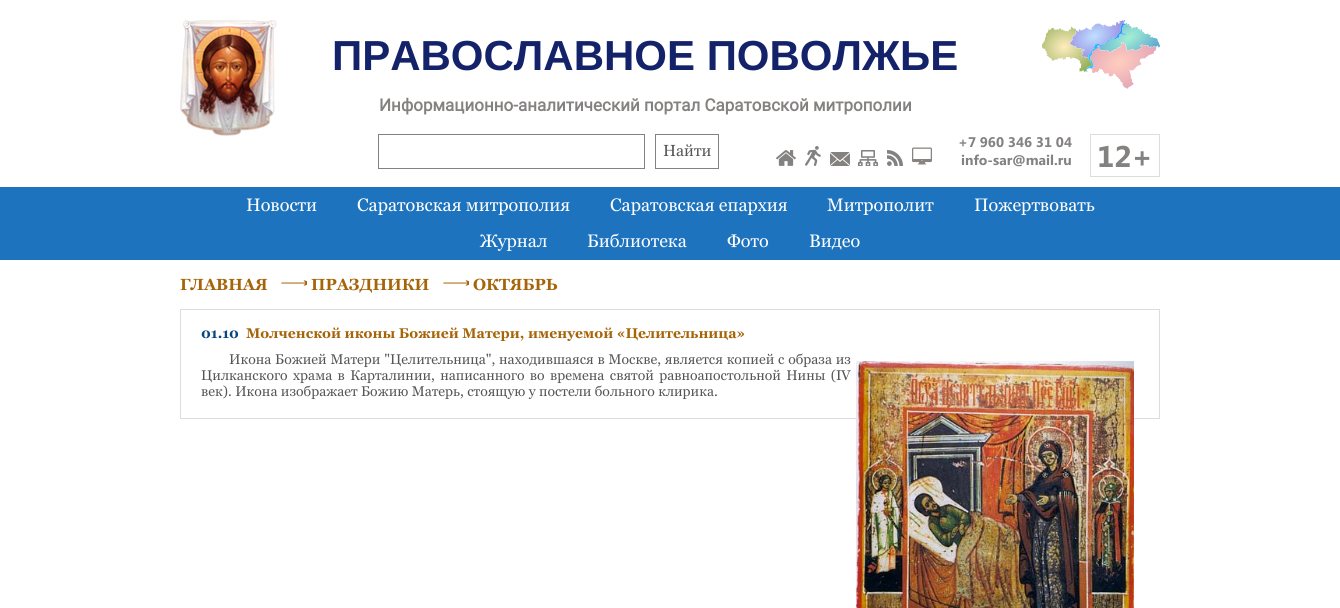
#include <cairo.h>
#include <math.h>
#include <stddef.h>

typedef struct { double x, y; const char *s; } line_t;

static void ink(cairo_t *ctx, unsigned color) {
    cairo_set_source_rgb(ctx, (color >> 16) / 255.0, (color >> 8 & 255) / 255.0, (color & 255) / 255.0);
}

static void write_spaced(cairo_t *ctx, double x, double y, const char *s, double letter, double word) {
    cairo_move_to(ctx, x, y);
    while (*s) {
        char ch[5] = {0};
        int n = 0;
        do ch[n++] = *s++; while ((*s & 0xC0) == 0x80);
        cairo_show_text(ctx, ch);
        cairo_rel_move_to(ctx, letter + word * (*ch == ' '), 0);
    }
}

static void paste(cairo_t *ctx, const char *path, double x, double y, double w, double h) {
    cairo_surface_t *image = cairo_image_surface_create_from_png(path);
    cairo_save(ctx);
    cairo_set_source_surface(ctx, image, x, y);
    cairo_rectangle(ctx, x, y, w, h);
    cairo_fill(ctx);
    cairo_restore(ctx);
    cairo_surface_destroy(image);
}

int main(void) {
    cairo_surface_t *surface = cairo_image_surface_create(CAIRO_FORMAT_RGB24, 1340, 608);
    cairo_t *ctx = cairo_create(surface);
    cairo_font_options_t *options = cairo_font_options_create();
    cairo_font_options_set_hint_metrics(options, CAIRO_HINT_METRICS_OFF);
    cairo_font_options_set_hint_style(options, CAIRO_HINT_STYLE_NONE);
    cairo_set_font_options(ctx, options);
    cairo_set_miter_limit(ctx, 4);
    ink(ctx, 0xFFFFFF);
    cairo_paint(ctx);
    paste(ctx, "media/1.png", 180, 20, 97, 116);
    cairo_select_font_face(ctx, "Liberation Sans", CAIRO_FONT_SLANT_NORMAL, CAIRO_FONT_WEIGHT_BOLD);
    cairo_set_font_size(ctx, 42);
    ink(ctx, 0x14226A);
    cairo_move_to(ctx, 332, 70);
    cairo_show_text(ctx, "ПРАВОСЛАВНОЕ ПОВОЛЖЬЕ");
    paste(ctx, "media/2.png", 1042, 20, 118, 69);
    cairo_select_font_face(ctx, "Roboto", CAIRO_FONT_SLANT_NORMAL, CAIRO_FONT_WEIGHT_BOLD);
    cairo_set_font_size(ctx, 17);
    ink(ctx, 0x848280);
    cairo_move_to(ctx, 379, 111);
    cairo_show_text(ctx, "Информационно-аналитический портал Саратовской митрополии");
    cairo_rectangle(ctx, 378.5, 134.5, 266, 34);
    cairo_set_line_width(ctx, 1);
    cairo_stroke(ctx);
    cairo_rectangle(ctx, 655.5, 134.5, 63, 34);
    cairo_stroke(ctx);
    cairo_select_font_face(ctx, "Georgia", CAIRO_FONT_SLANT_NORMAL, CAIRO_FONT_WEIGHT_NORMAL);
    cairo_set_font_size(ctx, 16);
    ink(ctx, 0x565656);
    cairo_move_to(ctx, 663, 156);
    cairo_show_text(ctx, "Найти");
    paste(ctx, "media/3.png", 776, 150, 20, 16);
    paste(ctx, "media/4.png", 805, 146, 16, 20);
    paste(ctx, "media/5.png", 830, 152, 20, 14);
    paste(ctx, "media/6.png", 858, 150, 20, 16);
    paste(ctx, "media/7.png", 887, 150, 16, 16);
    paste(ctx, "media/8.png", 912, 147, 20, 18);
    cairo_select_font_face(ctx, "Segoe UI", CAIRO_FONT_SLANT_NORMAL, CAIRO_FONT_WEIGHT_BOLD);
    cairo_set_font_size(ctx, 14);
    ink(ctx, 0x848280);
    cairo_move_to(ctx, 958, 147);
    cairo_show_text(ctx, "+7 960 346 31 04");
    cairo_move_to(ctx, 961, 165);
    cairo_show_text(ctx, "info-sar@mail.ru");
    cairo_rectangle(ctx, 1090.5, 134.5, 69, 42);
    ink(ctx, 0xDDDDDD);
    cairo_stroke(ctx);
    cairo_set_font_size(ctx, 30);
    ink(ctx, 0x848280);
    cairo_move_to(ctx, 1097, 167);
    cairo_show_text(ctx, "12+");
    ink(ctx, 0x1E73BE);
    cairo_rectangle(ctx, 0, 187, 1340, 73);
    cairo_fill(ctx);
    cairo_select_font_face(ctx, "Georgia", CAIRO_FONT_SLANT_NORMAL, CAIRO_FONT_WEIGHT_NORMAL);
    cairo_set_font_size(ctx, 18);
    ink(ctx, 0xFFFFFF);
    {
        static const line_t items[] = {
            {246, 211, "Новости"},
            {357, 211, "Саратовская митрополия"},
            {610, 211, "Саратовская епархия"},
            {827, 211, "Митрополит"},
            {974, 211, "Пожертвовать"},
            {480, 247, "Журнал"},
            {587, 247, "Библиотека"},
            {727, 247, "Фото"},
            {809, 247, "Видео"},
        };
        for (size_t i = 0; i < sizeof items / sizeof *items; i++) {
            cairo_move_to(ctx, items[i].x, items[i].y);
            cairo_show_text(ctx, items[i].s);
        }
    }
    cairo_select_font_face(ctx, "Georgia", CAIRO_FONT_SLANT_NORMAL, CAIRO_FONT_WEIGHT_BOLD);
    cairo_set_font_size(ctx, 16);
    ink(ctx, 0xA66408);
    cairo_move_to(ctx, 180, 290);
    cairo_show_text(ctx, "ГЛАВНАЯ");
    paste(ctx, "media/9.png", 281, 280, 26, 6);
    cairo_move_to(ctx, 311, 290);
    cairo_show_text(ctx, "ПРАЗДНИКИ");
    paste(ctx, "media/9.png", 443, 280, 26, 6);
    cairo_move_to(ctx, 473, 290);
    cairo_show_text(ctx, "ОКТЯБРЬ");
    cairo_rectangle(ctx, 180.5, 309.5, 979, 109);
    ink(ctx, 0xDDDDDD);
    cairo_stroke(ctx);
    cairo_set_font_size(ctx, 14);
    ink(ctx, 0x0A467C);
    cairo_move_to(ctx, 201, 338);
    cairo_show_text(ctx, "01.10");
    ink(ctx, 0xA66408);
    cairo_move_to(ctx, 246, 338);
    cairo_show_text(ctx, "Молченской иконы Божией Матери, именуемой «Целительница»");
    cairo_select_font_face(ctx, "Georgia", CAIRO_FONT_SLANT_NORMAL, CAIRO_FONT_WEIGHT_NORMAL);
    ink(ctx, 0x565656);
    write_spaced(ctx, 229, 364, "Икона Божией Матери \"Целительница\", находившаяся в Москве, является копией с образа из", 0, 0.4);
    paste(ctx, "media/10.png", 856, 361, 278, 247);
    write_spaced(ctx, 201, 380, "Цилканского храма в Карталинии, написанного во времена святой равноапостольной Нины (IV", 0, 2);
    cairo_move_to(ctx, 201, 396);
    cairo_show_text(ctx, "век). Икона изображает Божию Матерь, стоящую у постели больного клирика.");
    cairo_surface_write_to_png(surface, "image.png");
    cairo_font_options_destroy(options);
    cairo_destroy(ctx);
    cairo_surface_destroy(surface);
    return 0;
}
